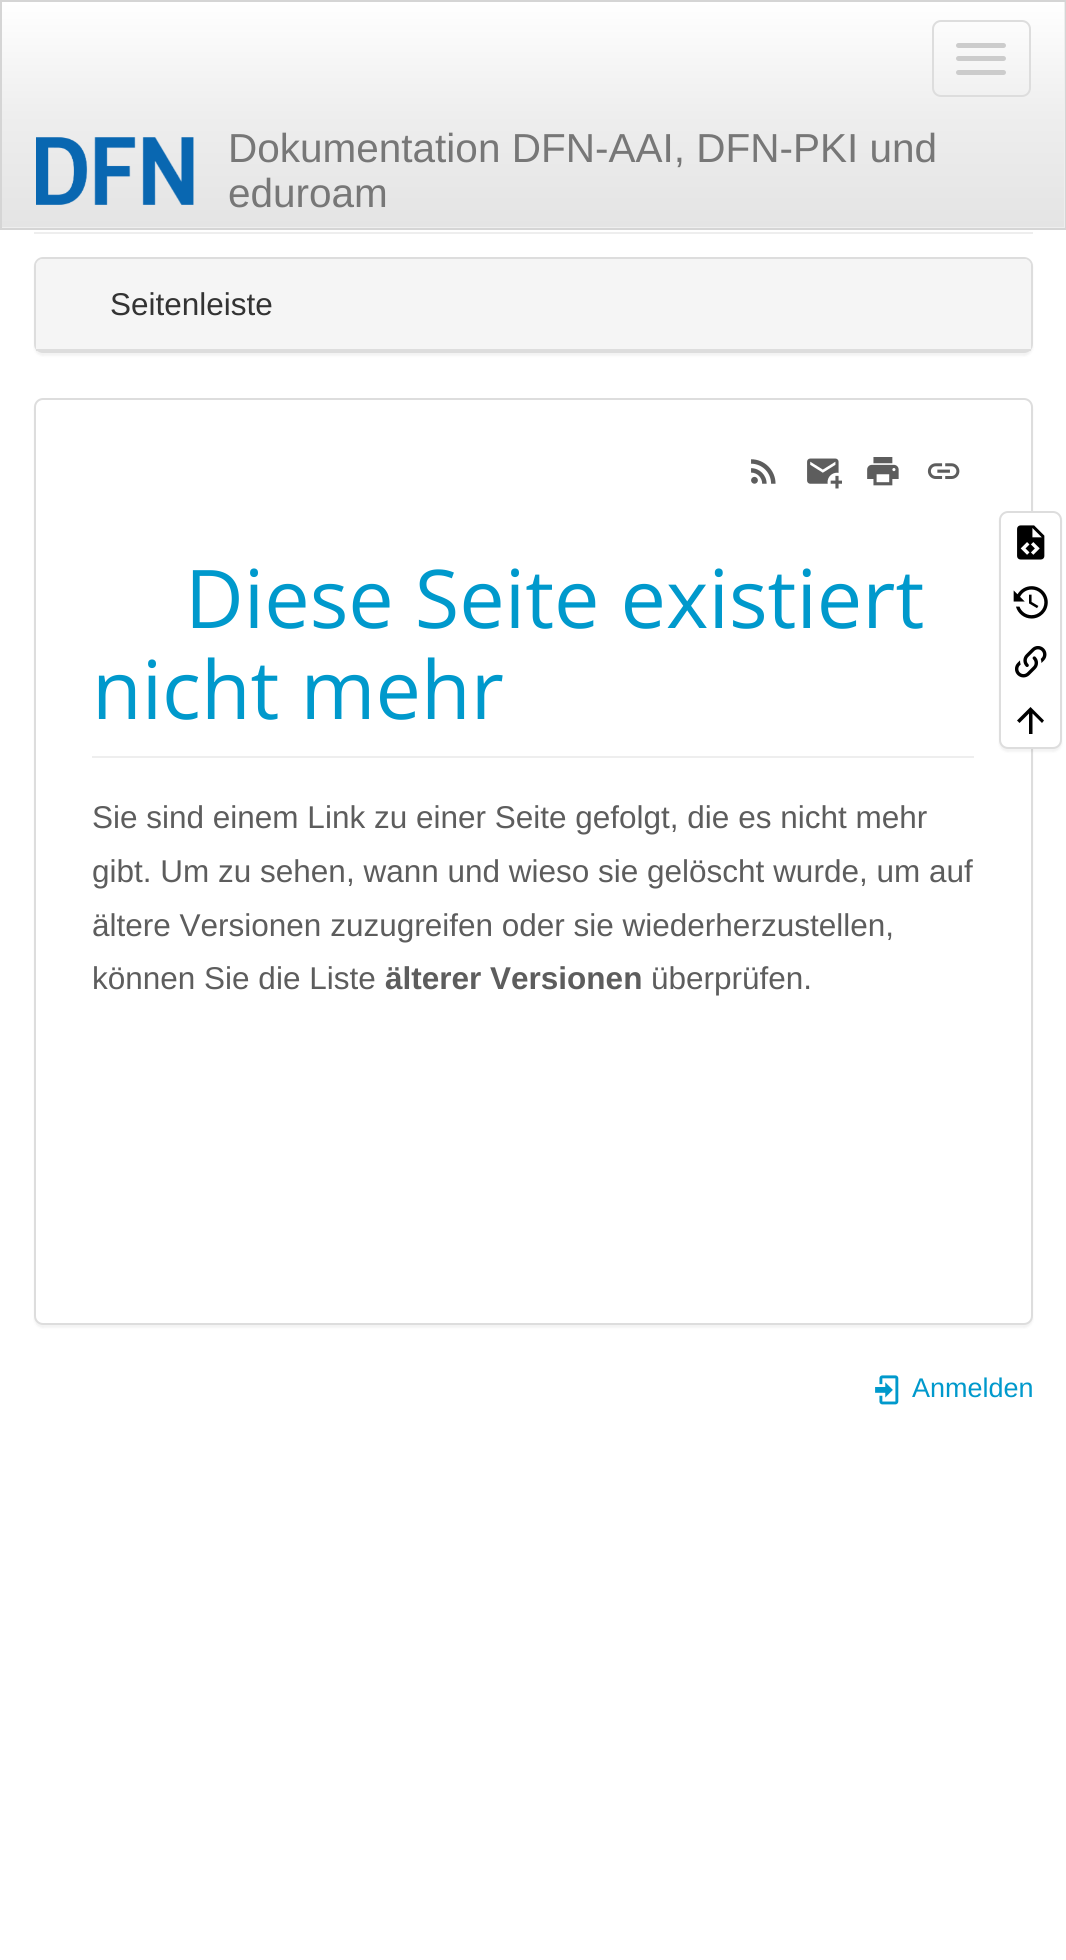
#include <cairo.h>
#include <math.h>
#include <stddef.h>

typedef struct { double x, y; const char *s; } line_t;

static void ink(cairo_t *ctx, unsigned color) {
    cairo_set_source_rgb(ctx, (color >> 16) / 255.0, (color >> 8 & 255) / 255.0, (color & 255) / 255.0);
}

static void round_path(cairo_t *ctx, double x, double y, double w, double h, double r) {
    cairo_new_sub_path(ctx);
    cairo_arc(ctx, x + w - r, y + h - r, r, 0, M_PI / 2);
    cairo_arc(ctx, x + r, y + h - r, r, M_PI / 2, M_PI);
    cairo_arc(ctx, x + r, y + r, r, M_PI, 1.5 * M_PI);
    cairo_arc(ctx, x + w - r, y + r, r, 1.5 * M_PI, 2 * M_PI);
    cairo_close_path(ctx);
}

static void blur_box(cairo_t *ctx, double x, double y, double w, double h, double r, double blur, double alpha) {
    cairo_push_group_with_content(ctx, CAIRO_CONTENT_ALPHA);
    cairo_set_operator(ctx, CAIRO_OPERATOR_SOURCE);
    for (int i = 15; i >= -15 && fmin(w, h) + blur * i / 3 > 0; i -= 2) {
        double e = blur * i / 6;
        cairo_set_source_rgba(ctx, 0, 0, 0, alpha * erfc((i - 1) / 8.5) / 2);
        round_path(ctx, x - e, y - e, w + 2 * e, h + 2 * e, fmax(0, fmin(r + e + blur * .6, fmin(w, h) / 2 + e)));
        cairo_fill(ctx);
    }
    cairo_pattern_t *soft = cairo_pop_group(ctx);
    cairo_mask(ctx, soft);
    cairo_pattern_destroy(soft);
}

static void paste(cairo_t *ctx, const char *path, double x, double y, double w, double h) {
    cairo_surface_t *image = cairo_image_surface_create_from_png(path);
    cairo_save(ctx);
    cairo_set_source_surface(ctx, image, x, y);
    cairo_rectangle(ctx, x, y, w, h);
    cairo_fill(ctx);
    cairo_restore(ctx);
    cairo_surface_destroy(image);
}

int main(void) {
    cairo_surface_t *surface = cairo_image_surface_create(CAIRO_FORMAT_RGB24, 1066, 1960);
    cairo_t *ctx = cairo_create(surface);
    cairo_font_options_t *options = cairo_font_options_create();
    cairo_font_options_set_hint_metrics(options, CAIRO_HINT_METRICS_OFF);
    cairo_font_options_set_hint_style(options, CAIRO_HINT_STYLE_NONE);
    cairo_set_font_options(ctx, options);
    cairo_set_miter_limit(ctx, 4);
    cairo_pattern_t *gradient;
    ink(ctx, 0xFFFFFF);
    cairo_paint(ctx);
    ink(ctx, 0xEEEEEE);
    cairo_rectangle(ctx, 2, 2, 1063, 226);
    cairo_fill(ctx);
    gradient = cairo_pattern_create_linear(533, 2.2, 533, 227);
    cairo_pattern_add_color_stop_rgba(gradient, 0, 1, 1, 1, 1);
    cairo_pattern_add_color_stop_rgba(gradient, 0.5, 0.933, 0.933, 0.933, 1);
    cairo_pattern_add_color_stop_rgba(gradient, 1, 0.894, 0.894, 0.894, 1);
    cairo_set_source(ctx, gradient);
    cairo_pattern_destroy(gradient);
    cairo_rectangle(ctx, 2, 2, 1062, 225);
    cairo_fill(ctx);
    cairo_rectangle(ctx, 1, 1, 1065, 228);
    ink(ctx, 0xD5D5D5);
    cairo_stroke(ctx);
    round_path(ctx, 933, 21, 97, 75, 8);
    ink(ctx, 0xDDDDDD);
    cairo_stroke(ctx);
    ink(ctx, 0xCCCCCC);
    round_path(ctx, 956, 43, 50, 5, 2.5);
    cairo_fill(ctx);
    round_path(ctx, 956, 56, 50, 5, 2.5);
    cairo_fill(ctx);
    round_path(ctx, 956, 70, 50, 5, 2.5);
    cairo_fill(ctx);
    paste(ctx, "media/1.png", 36, 137, 158, 68);
    cairo_select_font_face(ctx, "Liberation Sans", CAIRO_FONT_SLANT_NORMAL, CAIRO_FONT_WEIGHT_NORMAL);
    cairo_set_font_size(ctx, 40.5);
    ink(ctx, 0x777777);
    cairo_move_to(ctx, 228, 162);
    cairo_show_text(ctx, "Dokumentation DFN-AAI, DFN-PKI und");
    cairo_move_to(ctx, 228, 207);
    cairo_show_text(ctx, "eduroam");
    ink(ctx, 0xEEEEEE);
    cairo_rectangle(ctx, 34, 232, 999, 2);
    cairo_fill(ctx);
    ink(ctx, 0x000000);
    blur_box(ctx, 34, 259, 999, 97, 9, 1, 0.05);
    round_path(ctx, 35, 258, 997, 94, 8);
    ink(ctx, 0xDDDDDD);
    cairo_stroke(ctx);
    ink(ctx, 0xF5F5F5);
    cairo_new_path(ctx);
    cairo_move_to(ctx, 43, 259);
    cairo_line_to(ctx, 1024, 259);
    cairo_curve_to(ctx, 1028, 259, 1031, 262, 1031, 266);
    cairo_line_to(ctx, 1031, 351);
    cairo_line_to(ctx, 36, 351);
    cairo_line_to(ctx, 36, 266);
    cairo_curve_to(ctx, 36, 262, 39, 259, 43, 259);
    cairo_close_path(ctx);
    cairo_fill(ctx);
    ink(ctx, 0xDDDDDD);
    cairo_rectangle(ctx, 36, 349, 995, 2);
    cairo_fill(ctx);
    cairo_set_font_size(ctx, 31.5);
    ink(ctx, 0x333333);
    cairo_move_to(ctx, 110, 315);
    cairo_show_text(ctx, "Seitenleiste");
    ink(ctx, 0x000000);
    blur_box(ctx, 34, 401, 999, 927, 9, 1, 0.05);
    ink(ctx, 0xFFFFFF);
    round_path(ctx, 35, 399, 997, 925, 8);
    cairo_fill_preserve(ctx);
    ink(ctx, 0xDDDDDD);
    cairo_stroke(ctx);
    paste(ctx, "media/2.png", 751, 459, 25, 25);
    paste(ctx, "media/3.png", 807, 458, 35, 31);
    paste(ctx, "media/4.png", 867, 457, 32, 29);
    paste(ctx, "media/5.png", 927, 463, 33, 16);
    ink(ctx, 0xEEEEEE);
    cairo_rectangle(ctx, 92, 756, 882, 2);
    cairo_fill(ctx);
    cairo_select_font_face(ctx, "Open Sans", CAIRO_FONT_SLANT_NORMAL, CAIRO_FONT_WEIGHT_NORMAL);
    cairo_set_font_size(ctx, 81);
    ink(ctx, 0x0099CC);
    cairo_move_to(ctx, 185, 628);
    cairo_show_text(ctx, "Diese Seite existiert");
    cairo_move_to(ctx, 92, 719);
    cairo_show_text(ctx, "nicht mehr");
    cairo_select_font_face(ctx, "Liberation Sans", CAIRO_FONT_SLANT_NORMAL, CAIRO_FONT_WEIGHT_NORMAL);
    cairo_set_font_size(ctx, 31.5);
    ink(ctx, 0x5D5D5D);
    {
        static const line_t items[] = {
            {92, 828, "Sie sind einem Link zu einer Seite gefolgt, die es nicht mehr"},
            {92, 882, "gibt. Um zu sehen, wann und wieso sie gelöscht wurde, um auf"},
            {92, 936, "ältere Versionen zuzugreifen oder sie wiederherzustellen,"},
            {92, 989, "können Sie die Liste"},
        };
        for (size_t i = 0; i < sizeof items / sizeof *items; i++) {
            cairo_move_to(ctx, items[i].x, items[i].y);
            cairo_show_text(ctx, items[i].s);
        }
    }
    cairo_select_font_face(ctx, "Liberation Sans", CAIRO_FONT_SLANT_NORMAL, CAIRO_FONT_WEIGHT_BOLD);
    cairo_move_to(ctx, 385, 989);
    cairo_show_text(ctx, "älterer Versionen");
    cairo_select_font_face(ctx, "Liberation Sans", CAIRO_FONT_SLANT_NORMAL, CAIRO_FONT_WEIGHT_NORMAL);
    cairo_move_to(ctx, 651, 989);
    cairo_show_text(ctx, "überprüfen.");
    ink(ctx, 0x000000);
    blur_box(ctx, 999, 513, 63, 239, 9, 1, 0.05);
    ink(ctx, 0xFFFFFF);
    round_path(ctx, 1000, 512, 61, 236, 8);
    cairo_fill_preserve(ctx);
    ink(ctx, 0xDDDDDD);
    cairo_stroke(ctx);
    paste(ctx, "media/6.png", 1017, 525, 28, 35);
    paste(ctx, "media/7.png", 1013, 586, 35, 33);
    paste(ctx, "media/8.png", 1015, 646, 32, 32);
    ink(ctx, 0x000000);
    cairo_new_path(ctx);
    cairo_move_to(ctx, 1032.5, 734);
    cairo_line_to(ctx, 1029, 734);
    cairo_line_to(ctx, 1029, 713.5);
    cairo_line_to(ctx, 1019.5, 723);
    cairo_line_to(ctx, 1017, 720.5);
    cairo_line_to(ctx, 1030.5, 707);
    cairo_line_to(ctx, 1044, 720.5);
    cairo_line_to(ctx, 1042, 723);
    cairo_line_to(ctx, 1032.5, 713.5);
    cairo_close_path(ctx);
    cairo_fill(ctx);
    paste(ctx, "media/9.png", 875, 1375, 24, 30);
    cairo_set_font_size(ctx, 27);
    ink(ctx, 0x0099CC);
    cairo_move_to(ctx, 912, 1397);
    cairo_show_text(ctx, "Anmelden");
    cairo_surface_write_to_png(surface, "image.png");
    cairo_font_options_destroy(options);
    cairo_destroy(ctx);
    cairo_surface_destroy(surface);
    return 0;
}
